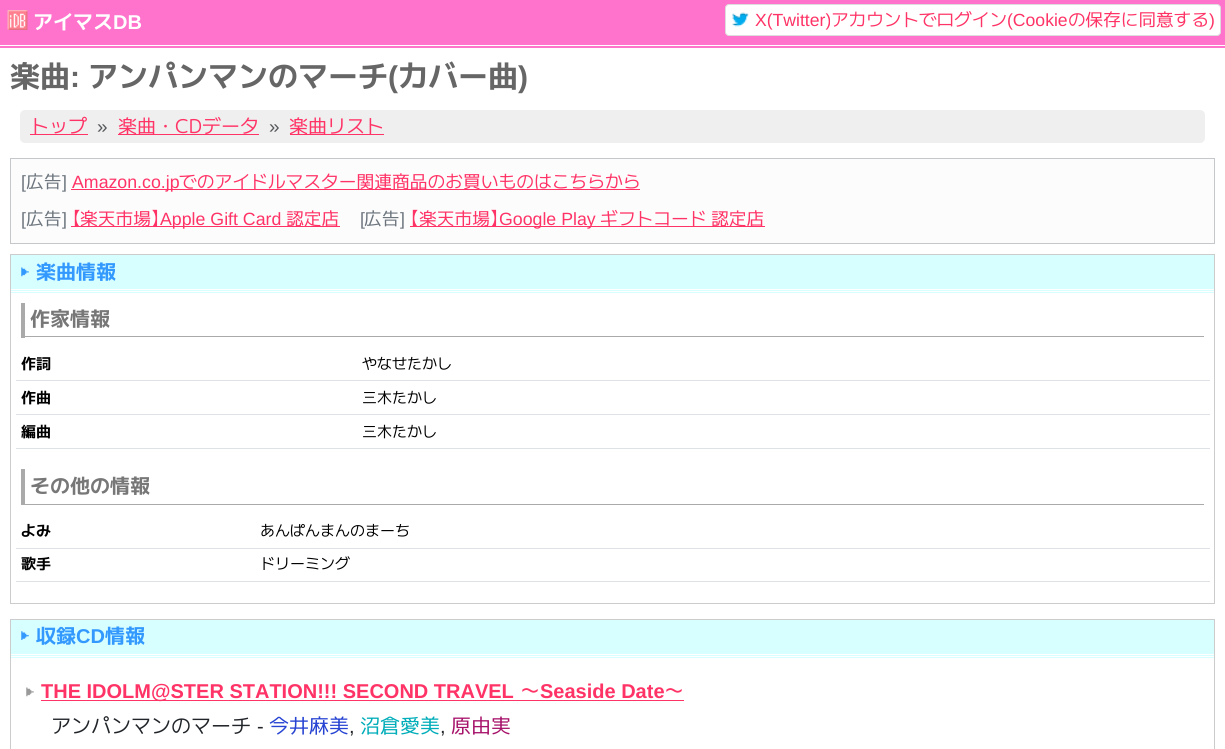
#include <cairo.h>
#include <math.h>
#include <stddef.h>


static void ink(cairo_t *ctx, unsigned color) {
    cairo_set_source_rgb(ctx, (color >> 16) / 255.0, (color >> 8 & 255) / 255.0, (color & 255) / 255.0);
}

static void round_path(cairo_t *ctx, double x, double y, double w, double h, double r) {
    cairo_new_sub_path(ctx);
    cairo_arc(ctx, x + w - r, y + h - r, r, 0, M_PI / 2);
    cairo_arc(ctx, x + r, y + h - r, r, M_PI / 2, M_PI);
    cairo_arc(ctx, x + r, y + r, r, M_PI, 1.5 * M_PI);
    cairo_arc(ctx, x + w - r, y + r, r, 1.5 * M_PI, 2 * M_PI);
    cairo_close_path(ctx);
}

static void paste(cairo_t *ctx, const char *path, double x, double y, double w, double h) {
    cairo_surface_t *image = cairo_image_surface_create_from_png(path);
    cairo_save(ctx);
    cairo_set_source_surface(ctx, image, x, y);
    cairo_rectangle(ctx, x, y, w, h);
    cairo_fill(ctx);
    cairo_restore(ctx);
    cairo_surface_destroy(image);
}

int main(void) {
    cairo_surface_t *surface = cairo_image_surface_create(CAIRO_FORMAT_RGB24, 1225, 749);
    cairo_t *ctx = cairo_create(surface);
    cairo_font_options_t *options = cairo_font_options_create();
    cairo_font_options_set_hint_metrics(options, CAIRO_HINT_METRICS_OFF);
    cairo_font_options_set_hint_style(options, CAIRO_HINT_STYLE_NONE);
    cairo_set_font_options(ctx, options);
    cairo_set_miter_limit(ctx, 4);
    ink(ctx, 0xFFFFFF);
    cairo_paint(ctx);
    ink(ctx, 0xFF73CC);
    cairo_rectangle(ctx, 0, 0, 1225, 48);
    cairo_fill(ctx);
    ink(ctx, 0xFFFFFF);
    cairo_rectangle(ctx, 0, 45, 1225, 1);
    cairo_fill(ctx);
    paste(ctx, "media/1.png", 7, 10, 21, 20);
    cairo_select_font_face(ctx, "M PLUS 2", CAIRO_FONT_SLANT_NORMAL, CAIRO_FONT_WEIGHT_BOLD);
    cairo_set_font_size(ctx, 20);
    cairo_move_to(ctx, 33, 29);
    cairo_show_text(ctx, "アイマス");
    cairo_select_font_face(ctx, "Liberation Sans", CAIRO_FONT_SLANT_NORMAL, CAIRO_FONT_WEIGHT_BOLD);
    cairo_move_to(ctx, 113, 29);
    cairo_show_text(ctx, "DB");
    round_path(ctx, 725.5, 4.5, 495, 31, 3.5);
    cairo_fill_preserve(ctx);
    ink(ctx, 0xDDDDDD);
    cairo_set_line_width(ctx, 1);
    cairo_stroke(ctx);
    paste(ctx, "media/2.png", 732, 12, 17, 15);
    cairo_select_font_face(ctx, "Liberation Sans", CAIRO_FONT_SLANT_NORMAL, CAIRO_FONT_WEIGHT_NORMAL);
    cairo_set_font_size(ctx, 17.6);
    ink(ctx, 0xFF3366);
    cairo_move_to(ctx, 755, 26);
    cairo_show_text(ctx, "X(Twitter)");
    cairo_select_font_face(ctx, "M PLUS 2", CAIRO_FONT_SLANT_NORMAL, CAIRO_FONT_WEIGHT_NORMAL);
    cairo_move_to(ctx, 831, 26);
    cairo_show_text(ctx, "アカウントでログイン");
    cairo_select_font_face(ctx, "Liberation Sans", CAIRO_FONT_SLANT_NORMAL, CAIRO_FONT_WEIGHT_NORMAL);
    cairo_move_to(ctx, 1007, 26);
    cairo_show_text(ctx, "(Cookie");
    cairo_select_font_face(ctx, "M PLUS 2", CAIRO_FONT_SLANT_NORMAL, CAIRO_FONT_WEIGHT_NORMAL);
    cairo_move_to(ctx, 1068, 26);
    cairo_show_text(ctx, "の保存に同意する");
    cairo_select_font_face(ctx, "Liberation Sans", CAIRO_FONT_SLANT_NORMAL, CAIRO_FONT_WEIGHT_NORMAL);
    cairo_move_to(ctx, 1209, 26);
    cairo_show_text(ctx, ")");
    cairo_select_font_face(ctx, "M PLUS 2", CAIRO_FONT_SLANT_NORMAL, CAIRO_FONT_WEIGHT_BOLD);
    cairo_set_font_size(ctx, 30);
    ink(ctx, 0x666666);
    cairo_move_to(ctx, 10, 87);
    cairo_show_text(ctx, "楽曲");
    cairo_select_font_face(ctx, "Liberation Sans", CAIRO_FONT_SLANT_NORMAL, CAIRO_FONT_WEIGHT_BOLD);
    cairo_move_to(ctx, 70, 87);
    cairo_show_text(ctx, ":");
    cairo_select_font_face(ctx, "M PLUS 2", CAIRO_FONT_SLANT_NORMAL, CAIRO_FONT_WEIGHT_BOLD);
    cairo_move_to(ctx, 88, 87);
    cairo_show_text(ctx, "アンパンマンのマーチ");
    cairo_select_font_face(ctx, "Liberation Sans", CAIRO_FONT_SLANT_NORMAL, CAIRO_FONT_WEIGHT_BOLD);
    cairo_move_to(ctx, 388, 87);
    cairo_show_text(ctx, "(");
    cairo_select_font_face(ctx, "M PLUS 2", CAIRO_FONT_SLANT_NORMAL, CAIRO_FONT_WEIGHT_BOLD);
    cairo_move_to(ctx, 398, 87);
    cairo_show_text(ctx, "カバー曲");
    cairo_select_font_face(ctx, "Liberation Sans", CAIRO_FONT_SLANT_NORMAL, CAIRO_FONT_WEIGHT_BOLD);
    cairo_move_to(ctx, 518, 87);
    cairo_show_text(ctx, ")");
    ink(ctx, 0xEFEFEF);
    round_path(ctx, 20, 110, 1185, 33, 5);
    cairo_fill(ctx);
    ink(ctx, 0xFF3366);
    cairo_rectangle(ctx, 30, 134, 58, 1);
    cairo_fill(ctx);
    cairo_select_font_face(ctx, "M PLUS 2", CAIRO_FONT_SLANT_NORMAL, CAIRO_FONT_WEIGHT_NORMAL);
    cairo_set_font_size(ctx, 19);
    cairo_move_to(ctx, 30, 133);
    cairo_show_text(ctx, "トップ");
    cairo_select_font_face(ctx, "Liberation Sans", CAIRO_FONT_SLANT_NORMAL, CAIRO_FONT_WEIGHT_NORMAL);
    ink(ctx, 0x55585B);
    cairo_move_to(ctx, 97, 133);
    cairo_show_text(ctx, "»");
    ink(ctx, 0xFF3366);
    cairo_rectangle(ctx, 118, 134, 141, 1);
    cairo_fill(ctx);
    cairo_select_font_face(ctx, "M PLUS 2", CAIRO_FONT_SLANT_NORMAL, CAIRO_FONT_WEIGHT_NORMAL);
    cairo_move_to(ctx, 118, 133);
    cairo_show_text(ctx, "楽曲・CDデータ");
    cairo_select_font_face(ctx, "Liberation Sans", CAIRO_FONT_SLANT_NORMAL, CAIRO_FONT_WEIGHT_NORMAL);
    ink(ctx, 0x55585B);
    cairo_move_to(ctx, 269, 133);
    cairo_show_text(ctx, "»");
    ink(ctx, 0xFF3366);
    cairo_rectangle(ctx, 290, 134, 94, 1);
    cairo_fill(ctx);
    cairo_select_font_face(ctx, "M PLUS 2", CAIRO_FONT_SLANT_NORMAL, CAIRO_FONT_WEIGHT_NORMAL);
    cairo_move_to(ctx, 289, 133);
    cairo_show_text(ctx, "楽曲リスト");
    ink(ctx, 0xFCFCFD);
    cairo_rectangle(ctx, 10.5, 158.5, 1204, 85);
    cairo_fill_preserve(ctx);
    ink(ctx, 0xC4C8CB);
    cairo_stroke(ctx);
    cairo_select_font_face(ctx, "Liberation Sans", CAIRO_FONT_SLANT_NORMAL, CAIRO_FONT_WEIGHT_NORMAL);
    cairo_set_font_size(ctx, 17.75);
    ink(ctx, 0x6C757D);
    cairo_move_to(ctx, 21, 188);
    cairo_show_text(ctx, "[");
    cairo_select_font_face(ctx, "M PLUS 2", CAIRO_FONT_SLANT_NORMAL, CAIRO_FONT_WEIGHT_NORMAL);
    cairo_move_to(ctx, 26, 188);
    cairo_show_text(ctx, "広告");
    cairo_select_font_face(ctx, "Liberation Sans", CAIRO_FONT_SLANT_NORMAL, CAIRO_FONT_WEIGHT_NORMAL);
    cairo_move_to(ctx, 62, 188);
    cairo_show_text(ctx, "]");
    ink(ctx, 0xFF3366);
    cairo_rectangle(ctx, 71, 189, 569, 1);
    cairo_fill(ctx);
    cairo_move_to(ctx, 72, 188);
    cairo_show_text(ctx, "Amazon.co.jp");
    cairo_select_font_face(ctx, "M PLUS 2", CAIRO_FONT_SLANT_NORMAL, CAIRO_FONT_WEIGHT_NORMAL);
    cairo_move_to(ctx, 179, 188);
    cairo_show_text(ctx, "でのアイドルマスター関連商品のお買いものはこちらから");
    cairo_select_font_face(ctx, "Liberation Sans", CAIRO_FONT_SLANT_NORMAL, CAIRO_FONT_WEIGHT_NORMAL);
    ink(ctx, 0x6C757D);
    cairo_move_to(ctx, 21, 225);
    cairo_show_text(ctx, "[");
    cairo_select_font_face(ctx, "M PLUS 2", CAIRO_FONT_SLANT_NORMAL, CAIRO_FONT_WEIGHT_NORMAL);
    cairo_move_to(ctx, 26, 225);
    cairo_show_text(ctx, "広告");
    cairo_select_font_face(ctx, "Liberation Sans", CAIRO_FONT_SLANT_NORMAL, CAIRO_FONT_WEIGHT_NORMAL);
    cairo_move_to(ctx, 62, 225);
    cairo_show_text(ctx, "]");
    ink(ctx, 0xFF3366);
    cairo_rectangle(ctx, 71, 226, 269, 1);
    cairo_fill(ctx);
    cairo_select_font_face(ctx, "BIZ UDPGothic", CAIRO_FONT_SLANT_NORMAL, CAIRO_FONT_WEIGHT_NORMAL);
    cairo_move_to(ctx, 72, 225);
    cairo_show_text(ctx, "【");
    cairo_select_font_face(ctx, "M PLUS 2", CAIRO_FONT_SLANT_NORMAL, CAIRO_FONT_WEIGHT_NORMAL);
    cairo_move_to(ctx, 80, 225);
    cairo_show_text(ctx, "楽天市場");
    cairo_select_font_face(ctx, "BIZ UDPGothic", CAIRO_FONT_SLANT_NORMAL, CAIRO_FONT_WEIGHT_NORMAL);
    cairo_move_to(ctx, 151, 225);
    cairo_show_text(ctx, "】");
    cairo_select_font_face(ctx, "Liberation Sans", CAIRO_FONT_SLANT_NORMAL, CAIRO_FONT_WEIGHT_NORMAL);
    cairo_move_to(ctx, 160, 225);
    cairo_show_text(ctx, "Apple Gift Card");
    cairo_select_font_face(ctx, "M PLUS 2", CAIRO_FONT_SLANT_NORMAL, CAIRO_FONT_WEIGHT_NORMAL);
    cairo_move_to(ctx, 286, 225);
    cairo_show_text(ctx, "認定店");
    cairo_select_font_face(ctx, "Liberation Sans", CAIRO_FONT_SLANT_NORMAL, CAIRO_FONT_WEIGHT_NORMAL);
    ink(ctx, 0x6C757D);
    cairo_move_to(ctx, 360, 225);
    cairo_show_text(ctx, "[");
    cairo_select_font_face(ctx, "M PLUS 2", CAIRO_FONT_SLANT_NORMAL, CAIRO_FONT_WEIGHT_NORMAL);
    cairo_move_to(ctx, 364, 225);
    cairo_show_text(ctx, "広告");
    cairo_select_font_face(ctx, "Liberation Sans", CAIRO_FONT_SLANT_NORMAL, CAIRO_FONT_WEIGHT_NORMAL);
    cairo_move_to(ctx, 400, 225);
    cairo_show_text(ctx, "]");
    ink(ctx, 0xFF3366);
    cairo_rectangle(ctx, 410, 226, 355, 1);
    cairo_fill(ctx);
    cairo_select_font_face(ctx, "BIZ UDPGothic", CAIRO_FONT_SLANT_NORMAL, CAIRO_FONT_WEIGHT_NORMAL);
    cairo_move_to(ctx, 410, 225);
    cairo_show_text(ctx, "【");
    cairo_select_font_face(ctx, "M PLUS 2", CAIRO_FONT_SLANT_NORMAL, CAIRO_FONT_WEIGHT_NORMAL);
    cairo_move_to(ctx, 419, 225);
    cairo_show_text(ctx, "楽天市場");
    cairo_select_font_face(ctx, "BIZ UDPGothic", CAIRO_FONT_SLANT_NORMAL, CAIRO_FONT_WEIGHT_NORMAL);
    cairo_move_to(ctx, 490, 225);
    cairo_show_text(ctx, "】");
    cairo_select_font_face(ctx, "Liberation Sans", CAIRO_FONT_SLANT_NORMAL, CAIRO_FONT_WEIGHT_NORMAL);
    cairo_move_to(ctx, 499, 225);
    cairo_show_text(ctx, "Google Play");
    cairo_select_font_face(ctx, "M PLUS 2", CAIRO_FONT_SLANT_NORMAL, CAIRO_FONT_WEIGHT_NORMAL);
    cairo_move_to(ctx, 600, 225);
    cairo_show_text(ctx, "ギフトコード");
    cairo_move_to(ctx, 711, 225);
    cairo_show_text(ctx, "認定店");
    cairo_rectangle(ctx, 10.5, 254.5, 1204, 349);
    ink(ctx, 0xCCCCCC);
    cairo_stroke(ctx);
    ink(ctx, 0xD7FFFF);
    cairo_rectangle(ctx, 11, 255, 1203, 38);
    cairo_fill(ctx);
    paste(ctx, "media/3.png", 21, 267, 8, 10);
    ink(ctx, 0xFFFFFF);
    cairo_rectangle(ctx, 11, 289, 1203, 1);
    cairo_fill(ctx);
    cairo_rectangle(ctx, 11, 291, 1203, 1);
    cairo_fill(ctx);
    cairo_select_font_face(ctx, "M PLUS 2", CAIRO_FONT_SLANT_NORMAL, CAIRO_FONT_WEIGHT_BOLD);
    cairo_set_font_size(ctx, 20);
    ink(ctx, 0x3399FF);
    cairo_move_to(ctx, 36, 279);
    cairo_show_text(ctx, "楽曲情報");
    ink(ctx, 0xAAAAAA);
    cairo_rectangle(ctx, 21, 336, 1183, 1);
    cairo_fill(ctx);
    cairo_rectangle(ctx, 21, 303, 4, 35);
    cairo_fill(ctx);
    ink(ctx, 0x777777);
    cairo_move_to(ctx, 30, 326);
    cairo_show_text(ctx, "作家情報");
    cairo_set_font_size(ctx, 15);
    ink(ctx, 0x000000);
    cairo_move_to(ctx, 21, 369);
    cairo_show_text(ctx, "作詞");
    ink(ctx, 0xDEE2E6);
    cairo_rectangle(ctx, 16, 380, 1194, 1);
    cairo_fill(ctx);
    cairo_select_font_face(ctx, "M PLUS 2", CAIRO_FONT_SLANT_NORMAL, CAIRO_FONT_WEIGHT_NORMAL);
    ink(ctx, 0x000000);
    cairo_move_to(ctx, 362, 369);
    cairo_show_text(ctx, "やなせたかし");
    cairo_select_font_face(ctx, "M PLUS 2", CAIRO_FONT_SLANT_NORMAL, CAIRO_FONT_WEIGHT_BOLD);
    cairo_move_to(ctx, 21, 403);
    cairo_show_text(ctx, "作曲");
    ink(ctx, 0xDEE2E6);
    cairo_rectangle(ctx, 16, 414, 1194, 1);
    cairo_fill(ctx);
    cairo_select_font_face(ctx, "M PLUS 2", CAIRO_FONT_SLANT_NORMAL, CAIRO_FONT_WEIGHT_NORMAL);
    ink(ctx, 0x000000);
    cairo_move_to(ctx, 362, 403);
    cairo_show_text(ctx, "三木たかし");
    cairo_select_font_face(ctx, "M PLUS 2", CAIRO_FONT_SLANT_NORMAL, CAIRO_FONT_WEIGHT_BOLD);
    cairo_move_to(ctx, 21, 437);
    cairo_show_text(ctx, "編曲");
    ink(ctx, 0xDEE2E6);
    cairo_rectangle(ctx, 16, 448, 1194, 1);
    cairo_fill(ctx);
    cairo_select_font_face(ctx, "M PLUS 2", CAIRO_FONT_SLANT_NORMAL, CAIRO_FONT_WEIGHT_NORMAL);
    ink(ctx, 0x000000);
    cairo_move_to(ctx, 362, 437);
    cairo_show_text(ctx, "三木たかし");
    ink(ctx, 0xAAAAAA);
    cairo_rectangle(ctx, 21, 504, 1183, 1);
    cairo_fill(ctx);
    cairo_rectangle(ctx, 21, 469, 4, 36);
    cairo_fill(ctx);
    cairo_select_font_face(ctx, "M PLUS 2", CAIRO_FONT_SLANT_NORMAL, CAIRO_FONT_WEIGHT_BOLD);
    cairo_set_font_size(ctx, 20);
    ink(ctx, 0x777777);
    cairo_move_to(ctx, 30, 493);
    cairo_show_text(ctx, "その他の情報");
    cairo_set_font_size(ctx, 15);
    ink(ctx, 0x000000);
    cairo_move_to(ctx, 21, 536);
    cairo_show_text(ctx, "よみ");
    ink(ctx, 0xDEE2E6);
    cairo_rectangle(ctx, 16, 548, 1194, 1);
    cairo_fill(ctx);
    cairo_select_font_face(ctx, "M PLUS 2", CAIRO_FONT_SLANT_NORMAL, CAIRO_FONT_WEIGHT_NORMAL);
    ink(ctx, 0x000000);
    cairo_move_to(ctx, 260, 536);
    cairo_show_text(ctx, "あんぱんまんのまーち");
    cairo_select_font_face(ctx, "M PLUS 2", CAIRO_FONT_SLANT_NORMAL, CAIRO_FONT_WEIGHT_BOLD);
    cairo_move_to(ctx, 21, 569);
    cairo_show_text(ctx, "歌手");
    ink(ctx, 0xDEE2E6);
    cairo_rectangle(ctx, 16, 581, 1194, 1);
    cairo_fill(ctx);
    cairo_select_font_face(ctx, "M PLUS 2", CAIRO_FONT_SLANT_NORMAL, CAIRO_FONT_WEIGHT_NORMAL);
    ink(ctx, 0x000000);
    cairo_move_to(ctx, 260, 569);
    cairo_show_text(ctx, "ドリーミング");
    cairo_rectangle(ctx, 10.5, 619.5, 1204, 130);
    ink(ctx, 0xCCCCCC);
    cairo_stroke(ctx);
    ink(ctx, 0xD7FFFF);
    cairo_rectangle(ctx, 11, 620, 1203, 38);
    cairo_fill(ctx);
    paste(ctx, "media/4.png", 21, 631, 8, 9);
    ink(ctx, 0xFFFFFF);
    cairo_rectangle(ctx, 11, 654, 1203, 1);
    cairo_fill(ctx);
    cairo_rectangle(ctx, 11, 656, 1203, 1);
    cairo_fill(ctx);
    cairo_select_font_face(ctx, "M PLUS 2", CAIRO_FONT_SLANT_NORMAL, CAIRO_FONT_WEIGHT_BOLD);
    cairo_set_font_size(ctx, 20);
    ink(ctx, 0x3399FF);
    cairo_move_to(ctx, 36, 643);
    cairo_show_text(ctx, "収録");
    cairo_select_font_face(ctx, "Liberation Sans", CAIRO_FONT_SLANT_NORMAL, CAIRO_FONT_WEIGHT_BOLD);
    cairo_move_to(ctx, 76, 643);
    cairo_show_text(ctx, "CD");
    cairo_select_font_face(ctx, "M PLUS 2", CAIRO_FONT_SLANT_NORMAL, CAIRO_FONT_WEIGHT_BOLD);
    cairo_move_to(ctx, 105, 643);
    cairo_show_text(ctx, "情報");
    paste(ctx, "media/5.png", 26, 687, 8, 10);
    ink(ctx, 0xFF3366);
    cairo_rectangle(ctx, 41, 700, 643, 1);
    cairo_fill(ctx);
    cairo_select_font_face(ctx, "Liberation Sans", CAIRO_FONT_SLANT_NORMAL, CAIRO_FONT_WEIGHT_BOLD);
    cairo_move_to(ctx, 41, 698);
    cairo_show_text(ctx, "THE IDOLM@STER STATION!!! SECOND TRAVEL");
    cairo_select_font_face(ctx, "BIZ UDPGothic", CAIRO_FONT_SLANT_NORMAL, CAIRO_FONT_WEIGHT_BOLD);
    cairo_move_to(ctx, 520, 698);
    cairo_show_text(ctx, "～");
    cairo_select_font_face(ctx, "Liberation Sans", CAIRO_FONT_SLANT_NORMAL, CAIRO_FONT_WEIGHT_BOLD);
    cairo_move_to(ctx, 540, 698);
    cairo_show_text(ctx, "Seaside Date");
    cairo_select_font_face(ctx, "BIZ UDPGothic", CAIRO_FONT_SLANT_NORMAL, CAIRO_FONT_WEIGHT_BOLD);
    cairo_move_to(ctx, 664, 698);
    cairo_show_text(ctx, "～");
    cairo_select_font_face(ctx, "M PLUS 2", CAIRO_FONT_SLANT_NORMAL, CAIRO_FONT_WEIGHT_NORMAL);
    ink(ctx, 0x212529);
    cairo_move_to(ctx, 51, 733);
    cairo_show_text(ctx, "アンパンマンのマーチ");
    cairo_select_font_face(ctx, "Liberation Sans", CAIRO_FONT_SLANT_NORMAL, CAIRO_FONT_WEIGHT_NORMAL);
    cairo_move_to(ctx, 257, 733);
    cairo_show_text(ctx, "-");
    cairo_select_font_face(ctx, "M PLUS 2", CAIRO_FONT_SLANT_NORMAL, CAIRO_FONT_WEIGHT_NORMAL);
    ink(ctx, 0x2743D2);
    cairo_move_to(ctx, 269, 733);
    cairo_show_text(ctx, "今井麻美");
    ink(ctx, 0x01ADB9);
    cairo_move_to(ctx, 360, 733);
    cairo_show_text(ctx, "沼倉愛美");
    ink(ctx, 0xA6126A);
    cairo_move_to(ctx, 451, 733);
    cairo_show_text(ctx, "原由実");
    cairo_select_font_face(ctx, "Liberation Sans", CAIRO_FONT_SLANT_NORMAL, CAIRO_FONT_WEIGHT_NORMAL);
    ink(ctx, 0x212529);
    cairo_move_to(ctx, 349, 733);
    cairo_show_text(ctx, ",");
    cairo_move_to(ctx, 440, 733);
    cairo_show_text(ctx, ",");
    cairo_surface_write_to_png(surface, "image.png");
    cairo_font_options_destroy(options);
    cairo_destroy(ctx);
    cairo_surface_destroy(surface);
    return 0;
}
